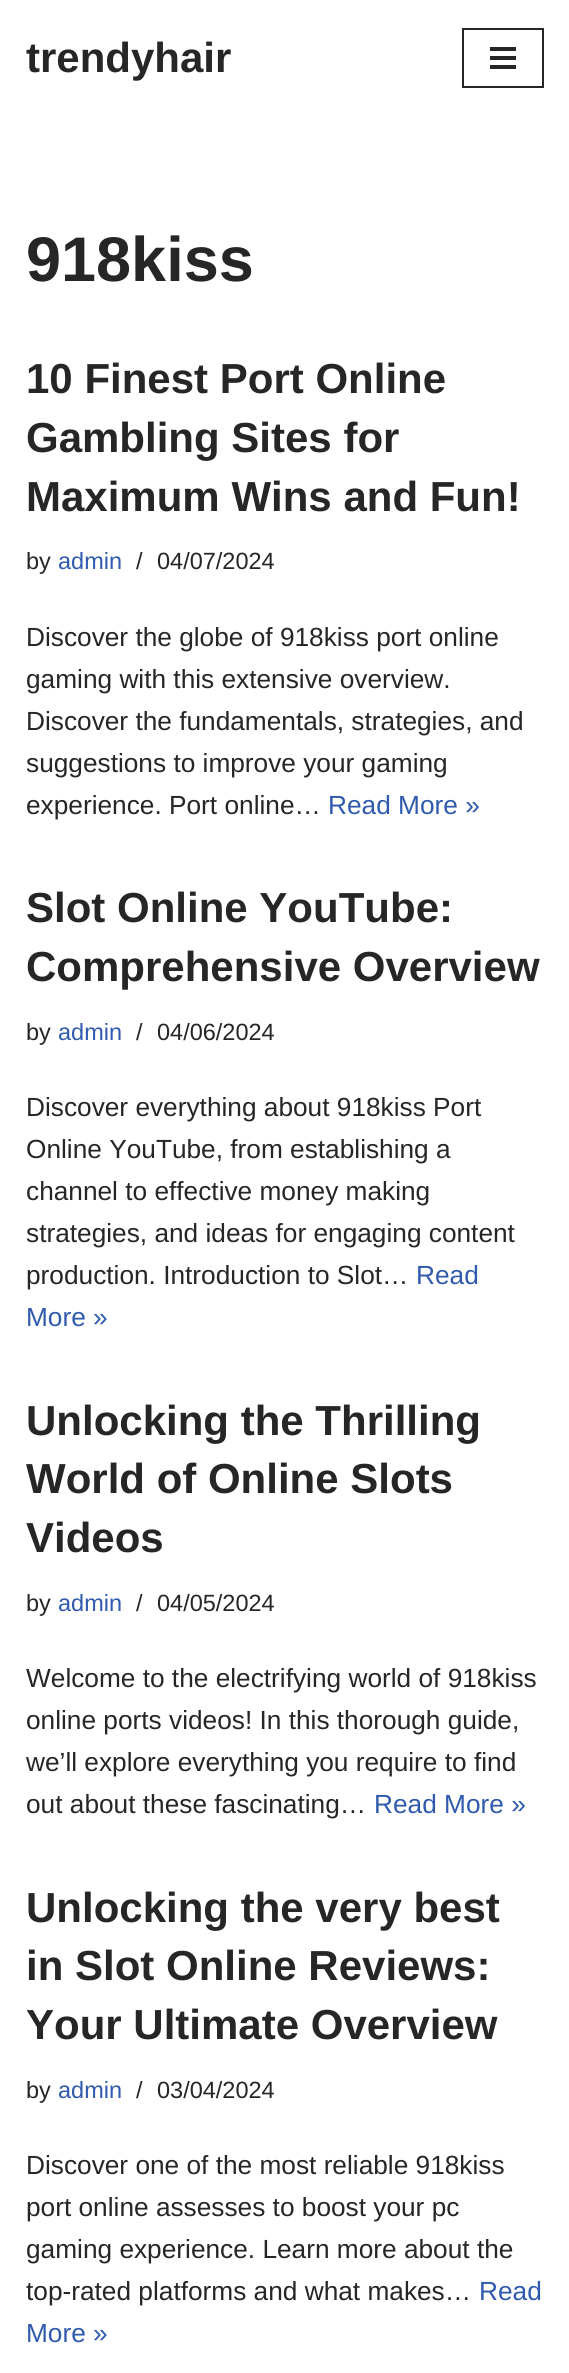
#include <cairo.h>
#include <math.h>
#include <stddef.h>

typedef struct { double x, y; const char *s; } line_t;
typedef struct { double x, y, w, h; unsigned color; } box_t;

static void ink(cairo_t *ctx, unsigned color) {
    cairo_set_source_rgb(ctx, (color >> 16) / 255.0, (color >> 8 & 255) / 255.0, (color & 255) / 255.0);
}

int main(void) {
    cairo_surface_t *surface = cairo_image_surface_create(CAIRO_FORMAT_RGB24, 569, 2373);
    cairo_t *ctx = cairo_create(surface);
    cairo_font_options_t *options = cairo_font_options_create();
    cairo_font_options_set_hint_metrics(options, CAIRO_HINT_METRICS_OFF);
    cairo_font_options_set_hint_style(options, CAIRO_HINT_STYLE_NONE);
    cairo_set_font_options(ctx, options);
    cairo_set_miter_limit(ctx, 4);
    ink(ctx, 0xFFFFFF);
    cairo_paint(ctx);
    cairo_select_font_face(ctx, "Liberation Sans", CAIRO_FONT_SLANT_NORMAL, CAIRO_FONT_WEIGHT_BOLD);
    cairo_set_font_size(ctx, 42);
    ink(ctx, 0x272626);
    cairo_move_to(ctx, 26, 72);
    cairo_show_text(ctx, "trendyhair");
    cairo_rectangle(ctx, 463, 29, 80, 58);
    cairo_stroke(ctx);
    {
        static const box_t items[] = {
            {490, 47, 26, 4, 0x272626},
            {490, 56, 26, 4, 0x272626},
            {490, 65, 26, 4, 0x272626},
        };
        for (size_t i = 0; i < sizeof items / sizeof *items; i++) {
            ink(ctx, items[i].color);
            cairo_rectangle(ctx, items[i].x, items[i].y, items[i].w, items[i].h);
            cairo_fill(ctx);
        }
    }
    cairo_set_font_size(ctx, 63);
    cairo_move_to(ctx, 26, 281);
    cairo_show_text(ctx, "918kiss");
    cairo_set_font_size(ctx, 42);
    {
        static const line_t items[] = {
            {26, 393, "10 Finest Port Online"},
            {26, 452, "Gambling Sites for"},
            {26, 511, "Maximum Wins and Fun!"},
        };
        for (size_t i = 0; i < sizeof items / sizeof *items; i++) {
            cairo_move_to(ctx, items[i].x, items[i].y);
            cairo_show_text(ctx, items[i].s);
        }
    }
    cairo_select_font_face(ctx, "Liberation Sans", CAIRO_FONT_SLANT_NORMAL, CAIRO_FONT_WEIGHT_NORMAL);
    cairo_set_font_size(ctx, 23.5);
    cairo_move_to(ctx, 26, 569);
    cairo_show_text(ctx, "by");
    ink(ctx, 0x2F5AAE);
    cairo_move_to(ctx, 58, 569);
    cairo_show_text(ctx, "admin");
    ink(ctx, 0x272626);
    cairo_move_to(ctx, 136, 569);
    cairo_show_text(ctx, "/");
    cairo_move_to(ctx, 157, 569);
    cairo_show_text(ctx, "04/07/2024");
    cairo_set_font_size(ctx, 26.25);
    {
        static const line_t items[] = {
            {26, 646, "Discover the globe of 918kiss port online"},
            {26, 688, "gaming with this extensive overview."},
            {26, 730, "Discover the fundamentals, strategies, and"},
            {26, 772, "suggestions to improve your gaming"},
            {26, 814, "experience. Port online…"},
        };
        for (size_t i = 0; i < sizeof items / sizeof *items; i++) {
            cairo_move_to(ctx, items[i].x, items[i].y);
            cairo_show_text(ctx, items[i].s);
        }
    }
    ink(ctx, 0x2F5AAE);
    cairo_move_to(ctx, 328, 814);
    cairo_show_text(ctx, "Read More »");
    cairo_select_font_face(ctx, "Liberation Sans", CAIRO_FONT_SLANT_NORMAL, CAIRO_FONT_WEIGHT_BOLD);
    cairo_set_font_size(ctx, 42);
    ink(ctx, 0x272626);
    cairo_move_to(ctx, 26, 922);
    cairo_show_text(ctx, "Slot Online YouTube:");
    cairo_move_to(ctx, 26, 981);
    cairo_show_text(ctx, "Comprehensive Overview");
    cairo_select_font_face(ctx, "Liberation Sans", CAIRO_FONT_SLANT_NORMAL, CAIRO_FONT_WEIGHT_NORMAL);
    cairo_set_font_size(ctx, 23.5);
    cairo_move_to(ctx, 26, 1040);
    cairo_show_text(ctx, "by");
    ink(ctx, 0x2F5AAE);
    cairo_move_to(ctx, 58, 1040);
    cairo_show_text(ctx, "admin");
    ink(ctx, 0x272626);
    cairo_move_to(ctx, 136, 1040);
    cairo_show_text(ctx, "/");
    cairo_move_to(ctx, 157, 1040);
    cairo_show_text(ctx, "04/06/2024");
    cairo_set_font_size(ctx, 26.25);
    {
        static const line_t items[] = {
            {26, 1116, "Discover everything about 918kiss Port"},
            {26, 1158, "Online YouTube, from establishing a"},
            {26, 1200, "channel to effective money making"},
            {26, 1242, "strategies, and ideas for engaging content"},
            {26, 1284, "production. Introduction to Slot…"},
        };
        for (size_t i = 0; i < sizeof items / sizeof *items; i++) {
            cairo_move_to(ctx, items[i].x, items[i].y);
            cairo_show_text(ctx, items[i].s);
        }
    }
    ink(ctx, 0x2F5AAE);
    cairo_move_to(ctx, 416, 1284);
    cairo_show_text(ctx, "Read");
    cairo_move_to(ctx, 26, 1326);
    cairo_show_text(ctx, "More »");
    cairo_select_font_face(ctx, "Liberation Sans", CAIRO_FONT_SLANT_NORMAL, CAIRO_FONT_WEIGHT_BOLD);
    cairo_set_font_size(ctx, 42);
    ink(ctx, 0x272626);
    {
        static const line_t items[] = {
            {26, 1435, "Unlocking the Thrilling"},
            {26, 1493, "World of Online Slots"},
            {26, 1552, "Videos"},
        };
        for (size_t i = 0; i < sizeof items / sizeof *items; i++) {
            cairo_move_to(ctx, items[i].x, items[i].y);
            cairo_show_text(ctx, items[i].s);
        }
    }
    cairo_select_font_face(ctx, "Liberation Sans", CAIRO_FONT_SLANT_NORMAL, CAIRO_FONT_WEIGHT_NORMAL);
    cairo_set_font_size(ctx, 23.5);
    cairo_move_to(ctx, 26, 1611);
    cairo_show_text(ctx, "by");
    ink(ctx, 0x2F5AAE);
    cairo_move_to(ctx, 58, 1611);
    cairo_show_text(ctx, "admin");
    ink(ctx, 0x272626);
    cairo_move_to(ctx, 136, 1611);
    cairo_show_text(ctx, "/");
    cairo_move_to(ctx, 157, 1611);
    cairo_show_text(ctx, "04/05/2024");
    cairo_set_font_size(ctx, 26.25);
    {
        static const line_t items[] = {
            {26, 1687, "Welcome to the electrifying world of 918kiss"},
            {26, 1729, "online ports videos! In this thorough guide,"},
            {26, 1771, "we’ll explore everything you require to find"},
            {26, 1813, "out about these fascinating…"},
        };
        for (size_t i = 0; i < sizeof items / sizeof *items; i++) {
            cairo_move_to(ctx, items[i].x, items[i].y);
            cairo_show_text(ctx, items[i].s);
        }
    }
    ink(ctx, 0x2F5AAE);
    cairo_move_to(ctx, 374, 1813);
    cairo_show_text(ctx, "Read More »");
    cairo_select_font_face(ctx, "Liberation Sans", CAIRO_FONT_SLANT_NORMAL, CAIRO_FONT_WEIGHT_BOLD);
    cairo_set_font_size(ctx, 42);
    ink(ctx, 0x272626);
    {
        static const line_t items[] = {
            {26, 1922, "Unlocking the very best"},
            {26, 1980, "in Slot Online Reviews:"},
            {26, 2039, "Your Ultimate Overview"},
        };
        for (size_t i = 0; i < sizeof items / sizeof *items; i++) {
            cairo_move_to(ctx, items[i].x, items[i].y);
            cairo_show_text(ctx, items[i].s);
        }
    }
    cairo_select_font_face(ctx, "Liberation Sans", CAIRO_FONT_SLANT_NORMAL, CAIRO_FONT_WEIGHT_NORMAL);
    cairo_set_font_size(ctx, 23.5);
    cairo_move_to(ctx, 26, 2098);
    cairo_show_text(ctx, "by");
    ink(ctx, 0x2F5AAE);
    cairo_move_to(ctx, 58, 2098);
    cairo_show_text(ctx, "admin");
    ink(ctx, 0x272626);
    cairo_move_to(ctx, 136, 2098);
    cairo_show_text(ctx, "/");
    cairo_move_to(ctx, 157, 2098);
    cairo_show_text(ctx, "03/04/2024");
    cairo_set_font_size(ctx, 26.25);
    {
        static const line_t items[] = {
            {26, 2174, "Discover one of the most reliable 918kiss"},
            {26, 2216, "port online assesses to boost your pc"},
            {26, 2258, "gaming experience. Learn more about the"},
            {26, 2300, "top-rated platforms and what makes…"},
        };
        for (size_t i = 0; i < sizeof items / sizeof *items; i++) {
            cairo_move_to(ctx, items[i].x, items[i].y);
            cairo_show_text(ctx, items[i].s);
        }
    }
    ink(ctx, 0x2F5AAE);
    cairo_move_to(ctx, 479, 2300);
    cairo_show_text(ctx, "Read");
    cairo_move_to(ctx, 26, 2342);
    cairo_show_text(ctx, "More »");
    cairo_surface_write_to_png(surface, "image.png");
    cairo_font_options_destroy(options);
    cairo_destroy(ctx);
    cairo_surface_destroy(surface);
    return 0;
}
